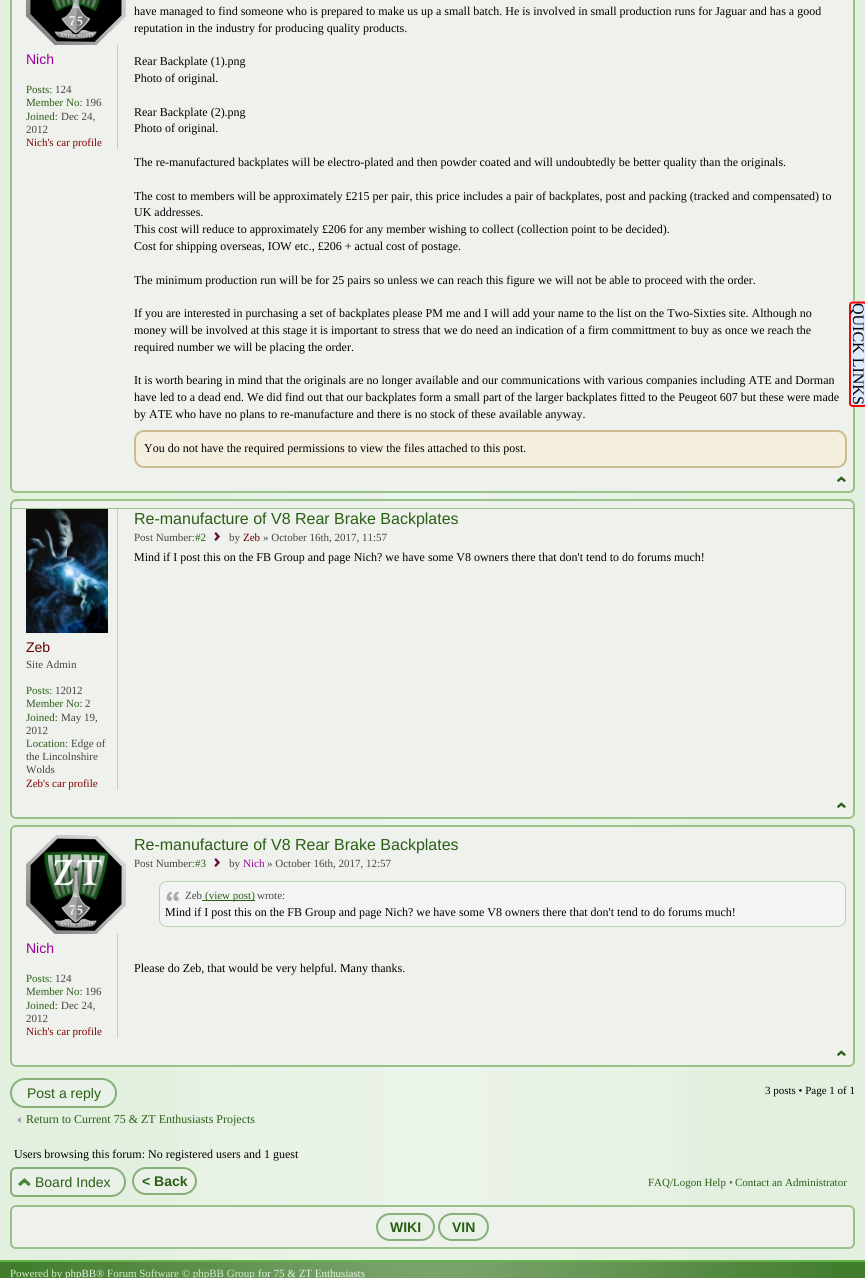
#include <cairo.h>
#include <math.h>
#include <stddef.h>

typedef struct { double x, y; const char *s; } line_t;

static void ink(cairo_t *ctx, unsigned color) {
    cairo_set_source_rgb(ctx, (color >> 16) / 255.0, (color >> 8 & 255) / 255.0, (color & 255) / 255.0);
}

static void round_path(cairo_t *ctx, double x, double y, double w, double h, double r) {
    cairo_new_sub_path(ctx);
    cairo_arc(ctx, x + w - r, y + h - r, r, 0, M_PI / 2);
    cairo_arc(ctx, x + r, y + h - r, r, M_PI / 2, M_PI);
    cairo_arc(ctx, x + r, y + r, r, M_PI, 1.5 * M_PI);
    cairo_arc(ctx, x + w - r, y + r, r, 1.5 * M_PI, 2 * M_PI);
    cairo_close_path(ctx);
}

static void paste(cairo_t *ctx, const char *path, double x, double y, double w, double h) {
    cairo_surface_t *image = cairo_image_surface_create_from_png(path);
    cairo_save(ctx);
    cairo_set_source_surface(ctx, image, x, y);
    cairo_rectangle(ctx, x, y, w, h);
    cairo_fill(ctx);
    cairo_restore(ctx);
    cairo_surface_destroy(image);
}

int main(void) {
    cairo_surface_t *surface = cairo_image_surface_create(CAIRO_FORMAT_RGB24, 865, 1278);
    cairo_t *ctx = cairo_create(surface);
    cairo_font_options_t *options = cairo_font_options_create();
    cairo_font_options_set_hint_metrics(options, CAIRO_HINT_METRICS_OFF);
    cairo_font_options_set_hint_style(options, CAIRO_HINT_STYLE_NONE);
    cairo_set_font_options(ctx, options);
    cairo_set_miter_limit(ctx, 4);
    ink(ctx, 0xE3EFDF);
    cairo_paint(ctx);
    paste(ctx, "media/1.png", 175, 493, 515, 767);
    ink(ctx, 0xEEF1EC);
    cairo_rectangle(ctx, 12, 0, 841, 491);
    cairo_fill(ctx);
    paste(ctx, "media/2.png", 10, 0, 845, 493);
    ink(ctx, 0xB8D5AF);
    cairo_rectangle(ctx, 117, 45, 1, 104);
    cairo_fill(ctx);
    paste(ctx, "media/3.png", 26, 0, 100, 45);
    cairo_select_font_face(ctx, "Liberation Sans", CAIRO_FONT_SLANT_NORMAL, CAIRO_FONT_WEIGHT_NORMAL);
    cairo_set_font_size(ctx, 14);
    ink(ctx, 0x990099);
    cairo_move_to(ctx, 26, 64);
    cairo_show_text(ctx, "Nich");
    cairo_select_font_face(ctx, "Liberation Serif", CAIRO_FONT_SLANT_NORMAL, CAIRO_FONT_WEIGHT_NORMAL);
    cairo_set_font_size(ctx, 11);
    ink(ctx, 0x295F15);
    cairo_move_to(ctx, 26, 93);
    cairo_show_text(ctx, "Posts:");
    ink(ctx, 0x444444);
    cairo_move_to(ctx, 55, 93);
    cairo_show_text(ctx, "124");
    ink(ctx, 0x295F15);
    cairo_move_to(ctx, 26, 106);
    cairo_show_text(ctx, "Member No:");
    ink(ctx, 0x444444);
    cairo_move_to(ctx, 85, 106);
    cairo_show_text(ctx, "196");
    ink(ctx, 0x295F15);
    cairo_move_to(ctx, 26, 120);
    cairo_show_text(ctx, "Joined:");
    ink(ctx, 0x444444);
    cairo_move_to(ctx, 61, 120);
    cairo_show_text(ctx, "Dec 24,");
    cairo_move_to(ctx, 26, 133);
    cairo_show_text(ctx, "2012");
    ink(ctx, 0x800000);
    cairo_move_to(ctx, 26, 146);
    cairo_show_text(ctx, "Nich's car profile");
    cairo_set_font_size(ctx, 12);
    ink(ctx, 0x000000);
    {
        static const line_t items[] = {
            {134, 15, "have managed to find someone who is prepared to make us up a small batch. He is involved in small production runs for Jaguar and has a good"},
            {134, 32, "reputation in the industry for producing quality products."},
            {134, 65, "Rear Backplate (1).png"},
            {134, 82, "Photo of original."},
            {134, 116, "Rear Backplate (2).png"},
            {134, 132, "Photo of original."},
            {134, 166, "The re-manufactured backplates will be electro-plated and then powder coated and will undoubtedly be better quality than the originals."},
            {134, 200, "The cost to members will be approximately £215 per pair, this price includes a pair of backplates, post and packing (tracked and compensated) to"},
            {134, 216, "UK addresses."},
            {134, 233, "This cost will reduce to approximately £206 for any member wishing to collect (collection point to be decided)."},
            {134, 250, "Cost for shipping overseas, IOW etc., £206 + actual cost of postage."},
            {134, 284, "The minimum production run will be for 25 pairs so unless we can reach this figure we will not be able to proceed with the order."},
            {134, 317, "If you are interested in purchasing a set of backplates please PM me and I will add your name to the list on the Two-Sixties site. Although no"},
            {134, 334, "money will be involved at this stage it is important to stress that we do need an indication of a firm committment to buy as once we reach the"},
            {134, 351, "required number we will be placing the order."},
            {134, 384, "It is worth bearing in mind that the originals are no longer available and our communications with various companies including ATE and Dorman"},
            {134, 401, "have led to a dead end. We did find out that our backplates form a small part of the larger backplates fitted to the Peugeot 607 but these were made"},
            {134, 418, "by ATE who have no plans to re-manufacture and there is no stock of these available anyway."},
        };
        for (size_t i = 0; i < sizeof items / sizeof *items; i++) {
            cairo_move_to(ctx, items[i].x, items[i].y);
            cairo_show_text(ctx, items[i].s);
        }
    }
    ink(ctx, 0xF5EFDF);
    round_path(ctx, 135, 431, 711, 36, 9);
    cairo_fill_preserve(ctx);
    ink(ctx, 0xCCBC8F);
    cairo_stroke(ctx);
    ink(ctx, 0x000000);
    cairo_move_to(ctx, 144, 452);
    cairo_show_text(ctx, "You do not have the required permissions to view the files attached to this post.");
    paste(ctx, "media/4.png", 837, 476, 9, 6);
    ink(ctx, 0xDCEBFE);
    cairo_new_path(ctx);
    cairo_move_to(ctx, 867, 305);
    cairo_line_to(ctx, 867, 403);
    cairo_curve_to(ctx, 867, 405, 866, 407, 863, 407);
    cairo_line_to(ctx, 853, 407);
    cairo_curve_to(ctx, 851, 407, 849, 405, 849, 403);
    cairo_line_to(ctx, 849, 305);
    cairo_curve_to(ctx, 849, 303, 851, 301, 853, 301);
    cairo_line_to(ctx, 863, 301);
    cairo_curve_to(ctx, 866, 301, 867, 303, 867, 305);
    cairo_close_path(ctx);
    cairo_fill(ctx);
    cairo_new_path(ctx);
    cairo_move_to(ctx, 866.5, 305.5);
    cairo_line_to(ctx, 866.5, 403);
    cairo_curve_to(ctx, 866.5, 405, 865, 406, 863.5, 406);
    cairo_line_to(ctx, 853, 406);
    cairo_curve_to(ctx, 851, 406, 850, 405, 850, 403);
    cairo_line_to(ctx, 850, 305.5);
    cairo_curve_to(ctx, 850, 303.5, 851, 302.5, 853, 302.5);
    cairo_line_to(ctx, 863.5, 302.5);
    cairo_curve_to(ctx, 865, 302.5, 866.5, 303.5, 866.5, 305.5);
    cairo_close_path(ctx);
    ink(ctx, 0xFF0000);
    cairo_stroke(ctx);
    cairo_set_font_size(ctx, 16);
    ink(ctx, 0x000000);
    cairo_save(ctx);
    cairo_translate(ctx, 853, 303);
    cairo_rotate(ctx, 90 * M_PI / 180);
    cairo_move_to(ctx, 0, 0);
    cairo_show_text(ctx, "QUICK LINKS");
    cairo_restore(ctx);
    ink(ctx, 0xEEF1EC);
    cairo_rectangle(ctx, 12, 501, 841, 316);
    cairo_fill(ctx);
    paste(ctx, "media/5.png", 10, 499, 845, 320);
    cairo_select_font_face(ctx, "Liberation Sans", CAIRO_FONT_SLANT_NORMAL, CAIRO_FONT_WEIGHT_NORMAL);
    ink(ctx, 0x295F15);
    cairo_move_to(ctx, 134, 524);
    cairo_show_text(ctx, "Re-manufacture of V8 Rear Brake Backplates");
    cairo_select_font_face(ctx, "Liberation Serif", CAIRO_FONT_SLANT_NORMAL, CAIRO_FONT_WEIGHT_NORMAL);
    cairo_set_font_size(ctx, 11);
    ink(ctx, 0x444444);
    cairo_move_to(ctx, 134, 541);
    cairo_show_text(ctx, "Post Number:");
    ink(ctx, 0x295F15);
    cairo_move_to(ctx, 195, 541);
    cairo_show_text(ctx, "#2");
    paste(ctx, "media/6.png", 214, 532, 6, 9);
    ink(ctx, 0x444444);
    cairo_move_to(ctx, 229, 541);
    cairo_show_text(ctx, "by");
    ink(ctx, 0x660000);
    cairo_move_to(ctx, 243, 541);
    cairo_show_text(ctx, "Zeb");
    ink(ctx, 0x444444);
    cairo_move_to(ctx, 263, 541);
    cairo_show_text(ctx, "» October 16th, 2017, 11:57");
    cairo_set_font_size(ctx, 12);
    ink(ctx, 0x000000);
    cairo_move_to(ctx, 134, 561);
    cairo_show_text(ctx, "Mind if I post this on the FB Group and page Nich? we have some V8 owners there that don't tend to do forums much!");
    ink(ctx, 0xB8D5AF);
    cairo_rectangle(ctx, 117, 509, 1, 281);
    cairo_fill(ctx);
    paste(ctx, "media/7.png", 26, 509, 82, 124);
    cairo_select_font_face(ctx, "Liberation Sans", CAIRO_FONT_SLANT_NORMAL, CAIRO_FONT_WEIGHT_NORMAL);
    cairo_set_font_size(ctx, 14);
    ink(ctx, 0x660000);
    cairo_move_to(ctx, 26, 652);
    cairo_show_text(ctx, "Zeb");
    cairo_select_font_face(ctx, "Liberation Serif", CAIRO_FONT_SLANT_NORMAL, CAIRO_FONT_WEIGHT_NORMAL);
    cairo_set_font_size(ctx, 11);
    ink(ctx, 0x444444);
    cairo_move_to(ctx, 26, 668);
    cairo_show_text(ctx, "Site Admin");
    ink(ctx, 0x295F15);
    cairo_move_to(ctx, 26, 694);
    cairo_show_text(ctx, "Posts:");
    ink(ctx, 0x444444);
    cairo_move_to(ctx, 55, 694);
    cairo_show_text(ctx, "12012");
    ink(ctx, 0x295F15);
    cairo_move_to(ctx, 26, 707);
    cairo_show_text(ctx, "Member No:");
    ink(ctx, 0x444444);
    cairo_move_to(ctx, 85, 707);
    cairo_show_text(ctx, "2");
    ink(ctx, 0x295F15);
    cairo_move_to(ctx, 26, 721);
    cairo_show_text(ctx, "Joined:");
    ink(ctx, 0x444444);
    cairo_move_to(ctx, 61, 721);
    cairo_show_text(ctx, "May 19,");
    cairo_move_to(ctx, 26, 734);
    cairo_show_text(ctx, "2012");
    ink(ctx, 0x295F15);
    cairo_move_to(ctx, 26, 747);
    cairo_show_text(ctx, "Location:");
    ink(ctx, 0x444444);
    {
        static const line_t items[] = {
            {71, 747, "Edge of"},
            {26, 760, "the Lincolnshire"},
            {26, 773, "Wolds"},
        };
        for (size_t i = 0; i < sizeof items / sizeof *items; i++) {
            cairo_move_to(ctx, items[i].x, items[i].y);
            cairo_show_text(ctx, items[i].s);
        }
    }
    ink(ctx, 0x800000);
    cairo_move_to(ctx, 26, 787);
    cairo_show_text(ctx, "Zeb's car profile");
    paste(ctx, "media/4.png", 837, 802, 9, 6);
    ink(ctx, 0xEEF1EC);
    cairo_rectangle(ctx, 12, 827, 841, 238);
    cairo_fill(ctx);
    paste(ctx, "media/8.png", 10, 825, 845, 242);
    cairo_select_font_face(ctx, "Liberation Sans", CAIRO_FONT_SLANT_NORMAL, CAIRO_FONT_WEIGHT_NORMAL);
    cairo_set_font_size(ctx, 16);
    ink(ctx, 0x295F15);
    cairo_move_to(ctx, 134, 850);
    cairo_show_text(ctx, "Re-manufacture of V8 Rear Brake Backplates");
    cairo_select_font_face(ctx, "Liberation Serif", CAIRO_FONT_SLANT_NORMAL, CAIRO_FONT_WEIGHT_NORMAL);
    cairo_set_font_size(ctx, 11);
    ink(ctx, 0x444444);
    cairo_move_to(ctx, 134, 867);
    cairo_show_text(ctx, "Post Number:");
    ink(ctx, 0x295F15);
    cairo_move_to(ctx, 195, 867);
    cairo_show_text(ctx, "#3");
    paste(ctx, "media/6.png", 214, 858, 6, 9);
    ink(ctx, 0x444444);
    cairo_move_to(ctx, 229, 867);
    cairo_show_text(ctx, "by");
    ink(ctx, 0x990099);
    cairo_move_to(ctx, 243, 867);
    cairo_show_text(ctx, "Nich");
    ink(ctx, 0x444444);
    cairo_move_to(ctx, 267, 867);
    cairo_show_text(ctx, "» October 16th, 2017, 12:57");
    ink(ctx, 0xF3F5F2);
    round_path(ctx, 159, 881, 687, 46, 8);
    cairo_fill(ctx);
    paste(ctx, "media/9.png", 166, 891, 13, 11);
    round_path(ctx, 159.5, 881.5, 686, 45, 7.5);
    ink(ctx, 0xB8D5AF);
    cairo_set_line_width(ctx, 1);
    cairo_stroke(ctx);
    ink(ctx, 0x444444);
    cairo_move_to(ctx, 185, 899);
    cairo_show_text(ctx, "Zeb");
    ink(ctx, 0x295F15);
    cairo_rectangle(ctx, 202, 900, 53, 1);
    cairo_fill(ctx);
    cairo_move_to(ctx, 205, 899);
    cairo_show_text(ctx, "(view post)");
    ink(ctx, 0x444444);
    cairo_move_to(ctx, 257, 899);
    cairo_show_text(ctx, "wrote:");
    cairo_set_font_size(ctx, 12);
    ink(ctx, 0x000000);
    cairo_move_to(ctx, 165, 916);
    cairo_show_text(ctx, "Mind if I post this on the FB Group and page Nich? we have some V8 owners there that don't tend to do forums much!");
    cairo_move_to(ctx, 134, 972);
    cairo_show_text(ctx, "Please do Zeb, that would be very helpful. Many thanks.");
    ink(ctx, 0xB8D5AF);
    cairo_rectangle(ctx, 117, 934, 1, 104);
    cairo_fill(ctx);
    paste(ctx, "media/10.png", 26, 835, 100, 99);
    cairo_select_font_face(ctx, "Liberation Sans", CAIRO_FONT_SLANT_NORMAL, CAIRO_FONT_WEIGHT_NORMAL);
    cairo_set_font_size(ctx, 14);
    ink(ctx, 0x990099);
    cairo_move_to(ctx, 26, 953);
    cairo_show_text(ctx, "Nich");
    cairo_select_font_face(ctx, "Liberation Serif", CAIRO_FONT_SLANT_NORMAL, CAIRO_FONT_WEIGHT_NORMAL);
    cairo_set_font_size(ctx, 11);
    ink(ctx, 0x295F15);
    cairo_move_to(ctx, 26, 982);
    cairo_show_text(ctx, "Posts:");
    ink(ctx, 0x444444);
    cairo_move_to(ctx, 55, 982);
    cairo_show_text(ctx, "124");
    ink(ctx, 0x295F15);
    cairo_move_to(ctx, 26, 995);
    cairo_show_text(ctx, "Member No:");
    ink(ctx, 0x444444);
    cairo_move_to(ctx, 85, 995);
    cairo_show_text(ctx, "196");
    ink(ctx, 0x295F15);
    cairo_move_to(ctx, 26, 1009);
    cairo_show_text(ctx, "Joined:");
    ink(ctx, 0x444444);
    cairo_move_to(ctx, 61, 1009);
    cairo_show_text(ctx, "Dec 24,");
    cairo_move_to(ctx, 26, 1022);
    cairo_show_text(ctx, "2012");
    ink(ctx, 0x800000);
    cairo_move_to(ctx, 26, 1035);
    cairo_show_text(ctx, "Nich's car profile");
    paste(ctx, "media/4.png", 837, 1050, 9, 6);
    paste(ctx, "media/11.png", 25, 1078, 92, 30);
    paste(ctx, "media/12.png", 10, 1078, 15, 30);
    cairo_select_font_face(ctx, "Liberation Sans", CAIRO_FONT_SLANT_NORMAL, CAIRO_FONT_WEIGHT_NORMAL);
    cairo_set_font_size(ctx, 14);
    ink(ctx, 0x295F15);
    cairo_move_to(ctx, 27, 1098);
    cairo_show_text(ctx, "Post a reply");
    cairo_select_font_face(ctx, "Liberation Serif", CAIRO_FONT_SLANT_NORMAL, CAIRO_FONT_WEIGHT_NORMAL);
    cairo_set_font_size(ctx, 11);
    ink(ctx, 0x000000);
    cairo_move_to(ctx, 765, 1094);
    cairo_show_text(ctx, "3 posts • Page 1 of 1");
    paste(ctx, "media/13.png", 17, 1117, 4, 6);
    cairo_set_font_size(ctx, 12);
    ink(ctx, 0x295F15);
    cairo_move_to(ctx, 26, 1123);
    cairo_show_text(ctx, "Return to Current 75 & ZT Enthusiasts Projects");
    ink(ctx, 0x000000);
    cairo_move_to(ctx, 14, 1158);
    cairo_show_text(ctx, "Users browsing this forum: No registered users and 1 guest");
    paste(ctx, "media/14.png", 31, 1167, 95, 30);
    paste(ctx, "media/15.png", 10, 1167, 21, 30);
    cairo_select_font_face(ctx, "Liberation Sans", CAIRO_FONT_SLANT_NORMAL, CAIRO_FONT_WEIGHT_NORMAL);
    cairo_set_font_size(ctx, 14);
    ink(ctx, 0x295F15);
    cairo_move_to(ctx, 35, 1187);
    cairo_show_text(ctx, "Board Index");
    ink(ctx, 0xEAF1E8);
    round_path(ctx, 133, 1168, 63, 26, 13);
    cairo_fill_preserve(ctx);
    ink(ctx, 0x87B078);
    cairo_set_line_width(ctx, 2);
    cairo_stroke(ctx);
    cairo_select_font_face(ctx, "Liberation Sans", CAIRO_FONT_SLANT_NORMAL, CAIRO_FONT_WEIGHT_BOLD);
    ink(ctx, 0x295F15);
    cairo_move_to(ctx, 142, 1186);
    cairo_show_text(ctx, "< Back");
    cairo_select_font_face(ctx, "Liberation Serif", CAIRO_FONT_SLANT_NORMAL, CAIRO_FONT_WEIGHT_NORMAL);
    cairo_set_font_size(ctx, 11);
    cairo_move_to(ctx, 648, 1186);
    cairo_show_text(ctx, "FAQ/Logon Help");
    ink(ctx, 0x666666);
    cairo_move_to(ctx, 729, 1186);
    cairo_show_text(ctx, "•");
    ink(ctx, 0x295F15);
    cairo_move_to(ctx, 735, 1186);
    cairo_show_text(ctx, "Contact an Administrator");
    ink(ctx, 0xEEF1EC);
    cairo_rectangle(ctx, 12, 1207, 841, 40);
    cairo_fill(ctx);
    paste(ctx, "media/16.png", 10, 1205, 845, 44);
    ink(ctx, 0xEAF1E8);
    round_path(ctx, 377, 1214, 57, 26, 13);
    cairo_fill_preserve(ctx);
    ink(ctx, 0x87B078);
    cairo_stroke(ctx);
    cairo_select_font_face(ctx, "Liberation Sans", CAIRO_FONT_SLANT_NORMAL, CAIRO_FONT_WEIGHT_BOLD);
    cairo_set_font_size(ctx, 14);
    ink(ctx, 0x295F15);
    cairo_move_to(ctx, 390, 1232);
    cairo_show_text(ctx, "WIKI");
    ink(ctx, 0xEAF1E8);
    round_path(ctx, 439, 1214, 49, 26, 13);
    cairo_fill_preserve(ctx);
    ink(ctx, 0x87B078);
    cairo_stroke(ctx);
    ink(ctx, 0x295F15);
    cairo_move_to(ctx, 452, 1232);
    cairo_show_text(ctx, "VIN");
    ink(ctx, 0x417C2C);
    cairo_rectangle(ctx, 0, 1262, 865, 16);
    cairo_fill(ctx);
    paste(ctx, "media/17.png", 32, 1262, 801, 16);
    ink(ctx, 0x65B24B);
    cairo_rectangle(ctx, 0, 1260, 865, 2);
    cairo_fill(ctx);
    cairo_select_font_face(ctx, "Liberation Serif", CAIRO_FONT_SLANT_NORMAL, CAIRO_FONT_WEIGHT_NORMAL);
    cairo_set_font_size(ctx, 11);
    ink(ctx, 0xD4E9CC);
    cairo_move_to(ctx, 10, 1277);
    cairo_show_text(ctx, "Powered by");
    ink(ctx, 0xE6F1E1);
    cairo_move_to(ctx, 65, 1277);
    cairo_show_text(ctx, "phpBB");
    ink(ctx, 0xD4E9CC);
    cairo_move_to(ctx, 96, 1277);
    cairo_show_text(ctx, "® Forum Software © phpBB Group");
    ink(ctx, 0xE6F1E1);
    cairo_move_to(ctx, 258, 1277);
    cairo_show_text(ctx, "for 75 & ZT Enthusiasts");
    cairo_surface_write_to_png(surface, "image.png");
    cairo_font_options_destroy(options);
    cairo_destroy(ctx);
    cairo_surface_destroy(surface);
    return 0;
}
